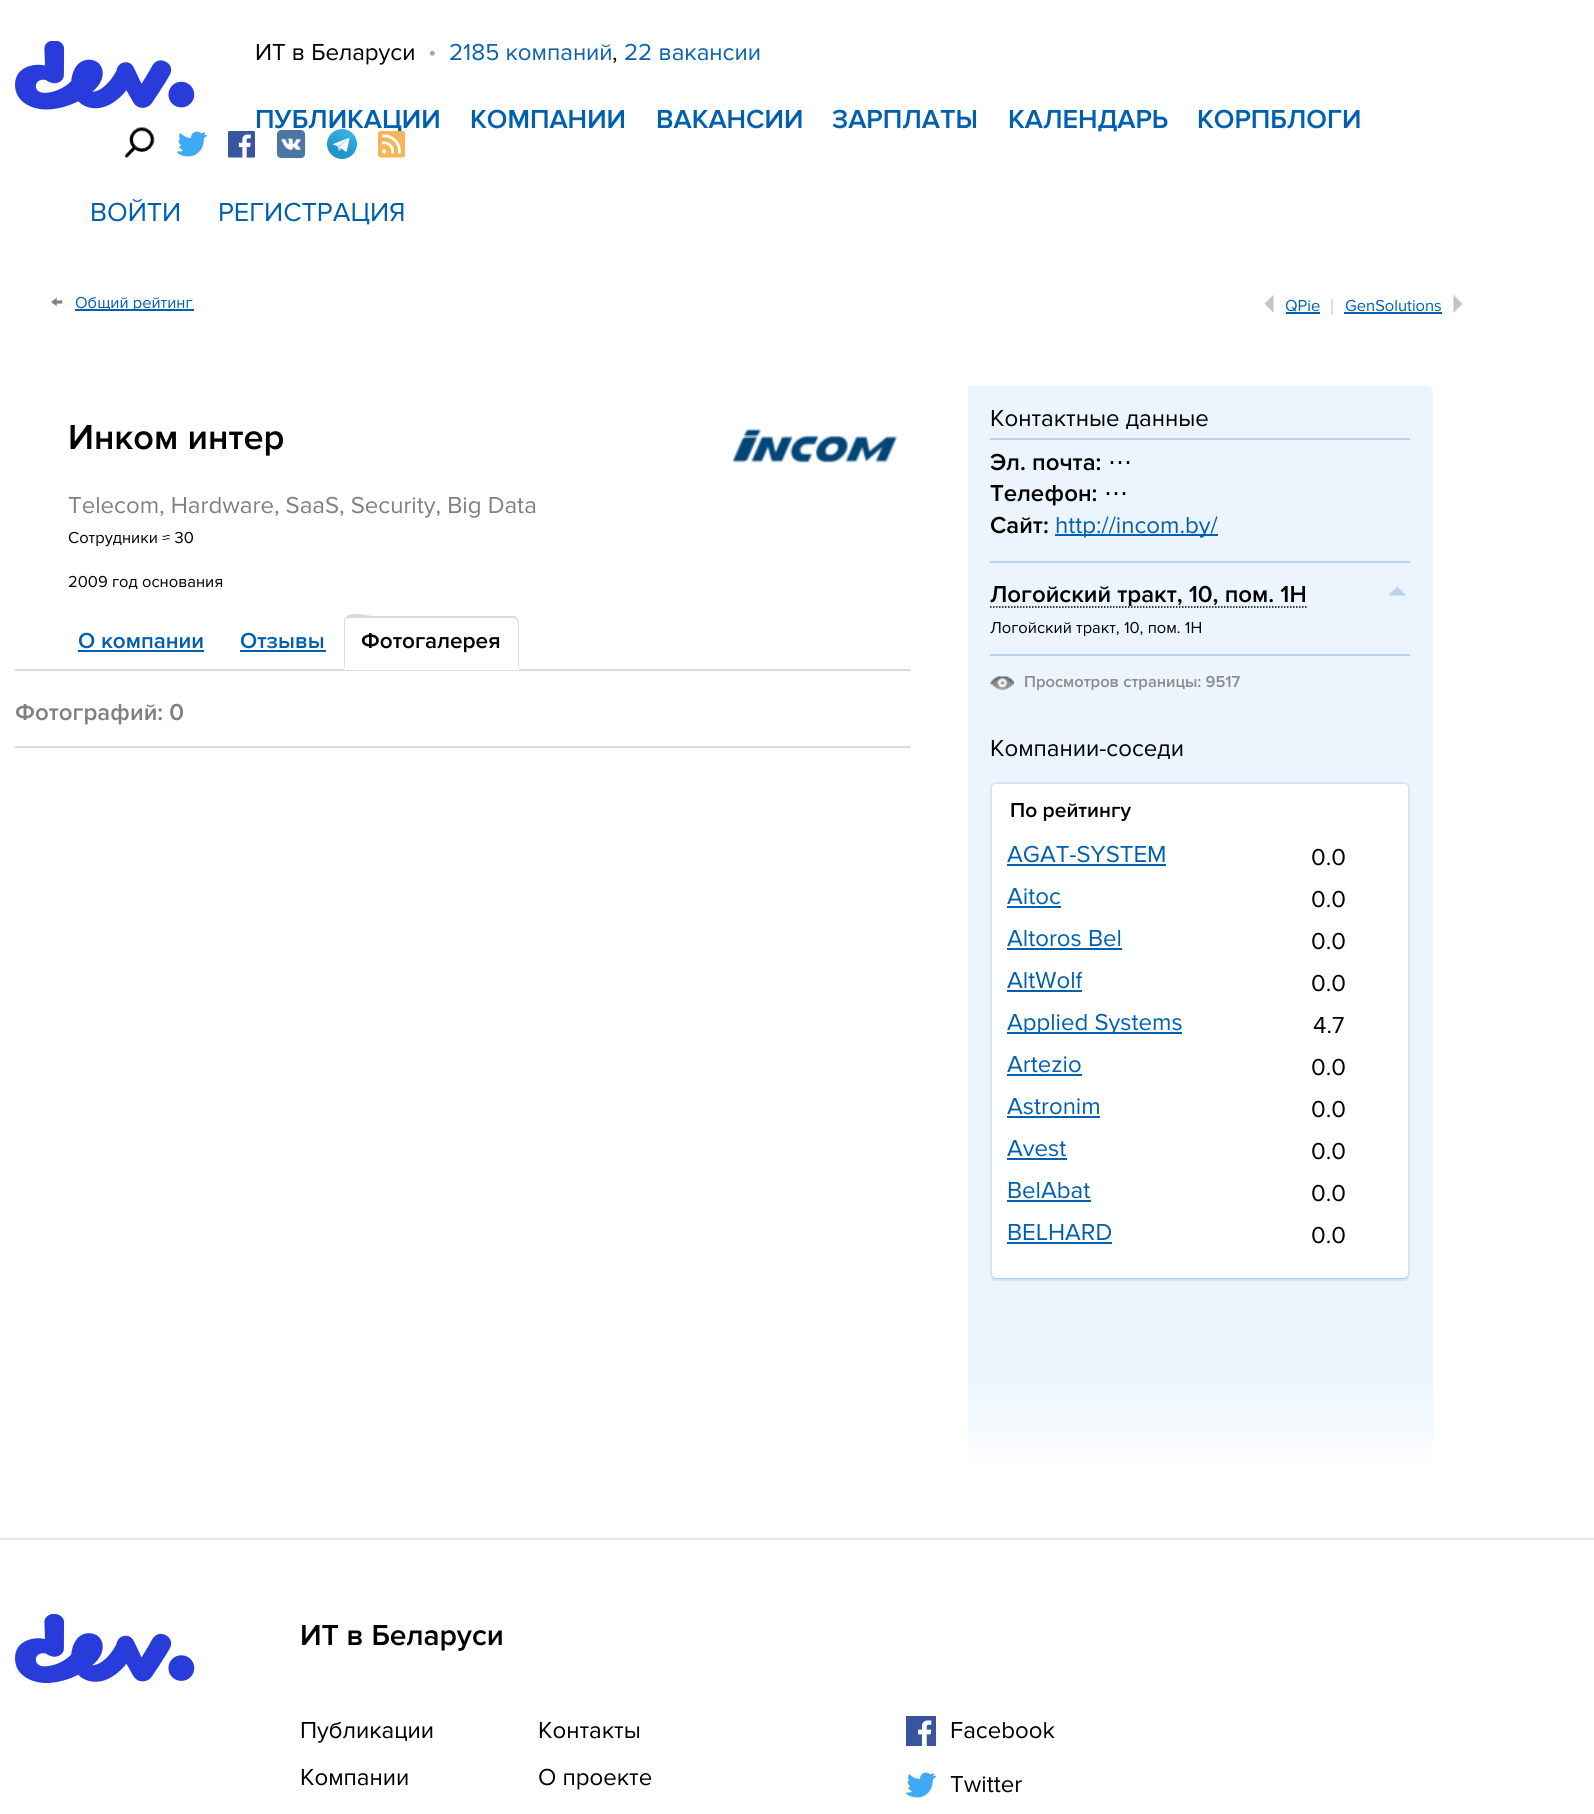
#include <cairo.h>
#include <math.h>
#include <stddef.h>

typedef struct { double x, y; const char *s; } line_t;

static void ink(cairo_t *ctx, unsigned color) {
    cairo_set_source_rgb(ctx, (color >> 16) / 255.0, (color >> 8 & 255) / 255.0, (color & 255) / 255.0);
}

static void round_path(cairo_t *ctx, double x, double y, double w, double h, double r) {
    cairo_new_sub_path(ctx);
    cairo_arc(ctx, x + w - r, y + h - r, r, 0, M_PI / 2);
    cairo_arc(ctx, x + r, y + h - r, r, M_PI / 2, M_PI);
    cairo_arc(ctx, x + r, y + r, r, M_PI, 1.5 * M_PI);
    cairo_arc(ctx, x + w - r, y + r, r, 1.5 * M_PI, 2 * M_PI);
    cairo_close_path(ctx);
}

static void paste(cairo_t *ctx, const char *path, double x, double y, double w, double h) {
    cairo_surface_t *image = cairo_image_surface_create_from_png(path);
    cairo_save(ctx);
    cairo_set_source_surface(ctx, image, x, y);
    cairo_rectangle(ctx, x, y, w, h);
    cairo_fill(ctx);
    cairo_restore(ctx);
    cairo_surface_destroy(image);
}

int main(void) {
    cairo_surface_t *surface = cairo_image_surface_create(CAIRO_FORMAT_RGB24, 1594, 1814);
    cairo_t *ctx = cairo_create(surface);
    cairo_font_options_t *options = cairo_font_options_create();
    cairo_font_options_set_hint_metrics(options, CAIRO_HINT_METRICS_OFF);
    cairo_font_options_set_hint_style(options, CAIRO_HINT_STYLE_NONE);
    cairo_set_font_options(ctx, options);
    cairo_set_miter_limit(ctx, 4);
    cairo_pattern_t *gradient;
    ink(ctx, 0xFFFFFF);
    cairo_paint(ctx);
    paste(ctx, "media/1.png", 15, 41, 180, 69);
    cairo_select_font_face(ctx, "Proxima Nova", CAIRO_FONT_SLANT_NORMAL, CAIRO_FONT_WEIGHT_NORMAL);
    cairo_set_font_size(ctx, 24);
    ink(ctx, 0x000000);
    cairo_move_to(ctx, 255, 60);
    cairo_show_text(ctx, "ИТ в Беларуси");
    cairo_select_font_face(ctx, "Proxima Nova SemiBold", CAIRO_FONT_SLANT_NORMAL, CAIRO_FONT_WEIGHT_NORMAL);
    cairo_set_font_size(ctx, 36);
    ink(ctx, 0xA6A6A6);
    cairo_move_to(ctx, 428, 62);
    cairo_show_text(ctx, "·");
    cairo_select_font_face(ctx, "Proxima Nova", CAIRO_FONT_SLANT_NORMAL, CAIRO_FONT_WEIGHT_NORMAL);
    cairo_set_font_size(ctx, 24);
    ink(ctx, 0x0C62AD);
    cairo_move_to(ctx, 449, 60);
    cairo_show_text(ctx, "2185 компаний");
    cairo_move_to(ctx, 624, 60);
    cairo_show_text(ctx, "22 вакансии");
    ink(ctx, 0x000000);
    cairo_move_to(ctx, 612, 60);
    cairo_show_text(ctx, ",");
    cairo_select_font_face(ctx, "Proxima Nova SemiBold", CAIRO_FONT_SLANT_NORMAL, CAIRO_FONT_WEIGHT_NORMAL);
    cairo_set_font_size(ctx, 27);
    ink(ctx, 0x0060AF);
    {
        static const line_t items[] = {
            {255, 128, "ПУБЛИКАЦИИ"},
            {470, 128, "КОМПАНИИ"},
            {656, 128, "ВАКАНСИИ"},
            {832, 128, "ЗАРПЛАТЫ"},
            {1008, 128, "КАЛЕНДАРЬ"},
            {1197, 128, "КОРПБЛОГИ"},
        };
        for (size_t i = 0; i < sizeof items / sizeof *items; i++) {
            cairo_move_to(ctx, items[i].x, items[i].y);
            cairo_show_text(ctx, items[i].s);
        }
    }
    paste(ctx, "media/2.png", 124, 127, 31, 31);
    paste(ctx, "media/3.png", 177, 131, 30, 26);
    paste(ctx, "media/4.png", 228, 131, 27, 27);
    paste(ctx, "media/5.png", 277, 130, 29, 29);
    paste(ctx, "media/6.png", 327, 129, 30, 30);
    paste(ctx, "media/7.png", 378, 131, 27, 27);
    cairo_select_font_face(ctx, "Proxima Nova", CAIRO_FONT_SLANT_NORMAL, CAIRO_FONT_WEIGHT_NORMAL);
    cairo_move_to(ctx, 90, 221);
    cairo_show_text(ctx, "ВОЙТИ");
    cairo_move_to(ctx, 218, 221);
    cairo_show_text(ctx, "РЕГИСТРАЦИЯ");
    cairo_set_font_size(ctx, 21);
    ink(ctx, 0x808080);
    cairo_move_to(ctx, 51, 308);
    cairo_show_text(ctx, "←");
    ink(ctx, 0x0060AF);
    cairo_rectangle(ctx, 75, 309, 119, 2);
    cairo_fill(ctx);
    cairo_set_font_size(ctx, 16.5);
    cairo_move_to(ctx, 75, 308);
    cairo_show_text(ctx, "Общий рейтинг");
    paste(ctx, "media/8.png", 1264, 295, 10, 17);
    cairo_move_to(ctx, 1285, 311);
    cairo_show_text(ctx, "QPie");
    cairo_rectangle(ctx, 1286, 312, 34, 2);
    cairo_fill(ctx);
    ink(ctx, 0xDFDFDF);
    cairo_rectangle(ctx, 1331, 299, 2, 16);
    cairo_fill(ctx);
    ink(ctx, 0x0060AF);
    cairo_move_to(ctx, 1345, 311);
    cairo_show_text(ctx, "GenSolutions");
    cairo_rectangle(ctx, 1344, 312, 98, 2);
    cairo_fill(ctx);
    paste(ctx, "media/9.png", 1453, 295, 10, 17);
    cairo_select_font_face(ctx, "Proxima Nova SemiBold", CAIRO_FONT_SLANT_NORMAL, CAIRO_FONT_WEIGHT_NORMAL);
    cairo_set_font_size(ctx, 36);
    ink(ctx, 0x000000);
    cairo_move_to(ctx, 68, 449);
    cairo_show_text(ctx, "Инком интер");
    cairo_select_font_face(ctx, "Proxima Nova", CAIRO_FONT_SLANT_NORMAL, CAIRO_FONT_WEIGHT_NORMAL);
    cairo_set_font_size(ctx, 24);
    ink(ctx, 0x808080);
    cairo_move_to(ctx, 68, 513);
    cairo_show_text(ctx, "Telecom, Hardware, SaaS, Security, Big Data");
    cairo_set_font_size(ctx, 16.5);
    ink(ctx, 0x000000);
    cairo_move_to(ctx, 68, 543);
    cairo_show_text(ctx, "Сотрудники ≈ 30");
    cairo_move_to(ctx, 68, 587);
    cairo_show_text(ctx, "2009 год основания");
    paste(ctx, "media/10.png", 732, 428, 166, 35);
    ink(ctx, 0xDBDBDB);
    cairo_rectangle(ctx, 15, 669, 896, 2);
    cairo_fill(ctx);
    cairo_select_font_face(ctx, "Proxima Nova SemiBold", CAIRO_FONT_SLANT_NORMAL, CAIRO_FONT_WEIGHT_NORMAL);
    cairo_set_font_size(ctx, 22.5);
    ink(ctx, 0x0060AF);
    cairo_move_to(ctx, 78, 648);
    cairo_show_text(ctx, "О компании");
    cairo_rectangle(ctx, 78, 650, 126, 2);
    cairo_fill(ctx);
    cairo_move_to(ctx, 240, 648);
    cairo_show_text(ctx, "Отзывы");
    cairo_rectangle(ctx, 240, 650, 86, 2);
    cairo_fill(ctx);
    ink(ctx, 0xDBDBDB);
    cairo_new_path(ctx);
    cairo_move_to(ctx, 350, 618);
    cairo_curve_to(ctx, 348, 618, 347, 619, 346, 619);
    cairo_line_to(ctx, 345, 618);
    cairo_curve_to(ctx, 351, 610, 365, 616, 375, 616);
    cairo_line_to(ctx, 515, 616);
    cairo_line_to(ctx, 517, 618);
    cairo_line_to(ctx, 516, 619);
    cairo_line_to(ctx, 513, 618);
    cairo_close_path(ctx);
    cairo_fill(ctx);
    cairo_new_path(ctx);
    cairo_move_to(ctx, 519, 670);
    cairo_line_to(ctx, 519, 622);
    cairo_curve_to(ctx, 519, 621, 518, 619, 517, 618);
    cairo_line_to(ctx, 516, 619);
    cairo_line_to(ctx, 518, 622);
    cairo_line_to(ctx, 518, 666);
    cairo_close_path(ctx);
    cairo_fill(ctx);
    ink(ctx, 0xFFFFFF);
    cairo_new_path(ctx);
    cairo_move_to(ctx, 519, 670);
    cairo_line_to(ctx, 344, 670);
    cairo_line_to(ctx, 344, 669);
    cairo_line_to(ctx, 345, 666);
    cairo_line_to(ctx, 518, 666);
    cairo_close_path(ctx);
    cairo_fill(ctx);
    ink(ctx, 0xDBDBDB);
    cairo_new_path(ctx);
    cairo_move_to(ctx, 344, 669);
    cairo_line_to(ctx, 344, 622);
    cairo_curve_to(ctx, 344, 621, 344, 619, 345, 618);
    cairo_line_to(ctx, 346, 619);
    cairo_curve_to(ctx, 345, 620, 345, 621, 345, 622);
    cairo_line_to(ctx, 345, 666);
    cairo_close_path(ctx);
    cairo_fill(ctx);
    ink(ctx, 0x000000);
    cairo_move_to(ctx, 361, 648);
    cairo_show_text(ctx, "Фотогалерея");
    ink(ctx, 0xDBDBDB);
    cairo_rectangle(ctx, 15, 746, 896, 2);
    cairo_fill(ctx);
    cairo_set_font_size(ctx, 24);
    ink(ctx, 0x808080);
    cairo_move_to(ctx, 15, 720);
    cairo_show_text(ctx, "Фотографий: 0");
    ink(ctx, 0xECF5FD);
    cairo_new_path(ctx);
    cairo_move_to(ctx, 968, 386);
    cairo_line_to(ctx, 1427, 386);
    cairo_curve_to(ctx, 1430.5, 386, 1433, 388.5, 1433, 392);
    cairo_line_to(ctx, 1433, 1511);
    cairo_curve_to(ctx, 1433, 1514.5, 1430.5, 1517, 1427, 1517);
    cairo_line_to(ctx, 968, 1517);
    cairo_close_path(ctx);
    cairo_fill(ctx);
    ink(ctx, 0xB8D4EC);
    cairo_rectangle(ctx, 990, 438, 420, 2);
    cairo_fill(ctx);
    cairo_select_font_face(ctx, "Proxima Nova", CAIRO_FONT_SLANT_NORMAL, CAIRO_FONT_WEIGHT_NORMAL);
    ink(ctx, 0x000000);
    cairo_move_to(ctx, 990, 426);
    cairo_show_text(ctx, "Контактные данные");
    ink(ctx, 0xB8D4EC);
    cairo_rectangle(ctx, 990, 561, 420, 2);
    cairo_fill(ctx);
    cairo_select_font_face(ctx, "Proxima Nova SemiBold", CAIRO_FONT_SLANT_NORMAL, CAIRO_FONT_WEIGHT_NORMAL);
    ink(ctx, 0x000000);
    cairo_move_to(ctx, 990, 470);
    cairo_show_text(ctx, "Эл. почта:");
    cairo_select_font_face(ctx, "DejaVu Sans", CAIRO_FONT_SLANT_NORMAL, CAIRO_FONT_WEIGHT_NORMAL);
    cairo_move_to(ctx, 1108, 470);
    cairo_show_text(ctx, "⋯");
    cairo_select_font_face(ctx, "Proxima Nova SemiBold", CAIRO_FONT_SLANT_NORMAL, CAIRO_FONT_WEIGHT_NORMAL);
    cairo_move_to(ctx, 990, 501);
    cairo_show_text(ctx, "Телефон:");
    cairo_select_font_face(ctx, "DejaVu Sans", CAIRO_FONT_SLANT_NORMAL, CAIRO_FONT_WEIGHT_NORMAL);
    cairo_move_to(ctx, 1104, 501);
    cairo_show_text(ctx, "⋯");
    cairo_select_font_face(ctx, "Proxima Nova SemiBold", CAIRO_FONT_SLANT_NORMAL, CAIRO_FONT_WEIGHT_NORMAL);
    cairo_move_to(ctx, 990, 533);
    cairo_show_text(ctx, "Сайт:");
    ink(ctx, 0x0060AF);
    cairo_rectangle(ctx, 1055, 534, 163, 2);
    cairo_fill(ctx);
    cairo_select_font_face(ctx, "Proxima Nova", CAIRO_FONT_SLANT_NORMAL, CAIRO_FONT_WEIGHT_NORMAL);
    cairo_move_to(ctx, 1055, 533);
    cairo_show_text(ctx, "http://incom.by/");
    ink(ctx, 0xB8D4EC);
    cairo_rectangle(ctx, 990, 654, 420, 2);
    cairo_fill(ctx);
    cairo_new_path(ctx);
    cairo_move_to(ctx, 990, 607);
    cairo_line_to(ctx, 1306.5, 607);
    ink(ctx, 0x010101);
    cairo_set_line_width(ctx, 1.5);
    cairo_set_dash(ctx, (double[]){1.5, 1.5}, 2, 0);
    cairo_stroke(ctx);
    cairo_save(ctx);
    cairo_rectangle(ctx, 990, 582, 317, 24);
    cairo_clip(ctx);
    cairo_select_font_face(ctx, "Proxima Nova SemiBold", CAIRO_FONT_SLANT_NORMAL, CAIRO_FONT_WEIGHT_NORMAL);
    ink(ctx, 0x000000);
    cairo_move_to(ctx, 990, 602);
    cairo_show_text(ctx, "Логойский тракт, 10, пом. 1Н");
    cairo_restore(ctx);
    paste(ctx, "media/11.png", 1389, 586, 17, 10);
    cairo_set_font_size(ctx, 16.5);
    ink(ctx, 0x000000);
    cairo_move_to(ctx, 990, 633);
    cairo_show_text(ctx, "Логойский тракт, 10, пом. 1Н");
    paste(ctx, "media/12.png", 990, 676, 24, 16);
    cairo_select_font_face(ctx, "Proxima Nova SemiBold", CAIRO_FONT_SLANT_NORMAL, CAIRO_FONT_WEIGHT_NORMAL);
    ink(ctx, 0x8C8C8C);
    cairo_move_to(ctx, 1024, 687);
    cairo_show_text(ctx, "Просмотров страницы: 9517");
    cairo_select_font_face(ctx, "Proxima Nova", CAIRO_FONT_SLANT_NORMAL, CAIRO_FONT_WEIGHT_NORMAL);
    cairo_set_font_size(ctx, 24);
    ink(ctx, 0x000000);
    cairo_move_to(ctx, 990, 756);
    cairo_show_text(ctx, "Компании-соседи");
    ink(ctx, 0xFFFFFF);
    round_path(ctx, 990, 782, 420, 499, 6);
    cairo_fill(ctx);
    ink(ctx, 0xABCBE7);
    cairo_new_path(ctx);
    cairo_move_to(ctx, 992, 1274);
    cairo_line_to(ctx, 992, 1275);
    cairo_curve_to(ctx, 992, 1278, 994, 1280, 997, 1280);
    cairo_line_to(ctx, 1404, 1280);
    cairo_curve_to(ctx, 1407, 1280, 1409, 1278, 1409, 1275);
    cairo_line_to(ctx, 1409, 788);
    cairo_curve_to(ctx, 1409, 787, 1409, 786, 1408, 785);
    cairo_line_to(ctx, 1408, 1274);
    cairo_curve_to(ctx, 1408, 1276, 1406, 1278, 1404, 1278);
    cairo_line_to(ctx, 996, 1278);
    cairo_curve_to(ctx, 994, 1278, 992, 1276, 992, 1274);
    cairo_close_path(ctx);
    cairo_fill(ctx);
    round_path(ctx, 991, 783, 418, 497, 5);
    ink(ctx, 0xD4E6F5);
    cairo_set_line_width(ctx, 2);
    cairo_set_dash(ctx, NULL, 0, 0);
    cairo_stroke(ctx);
    cairo_select_font_face(ctx, "Proxima Nova SemiBold", CAIRO_FONT_SLANT_NORMAL, CAIRO_FONT_WEIGHT_NORMAL);
    cairo_set_font_size(ctx, 21);
    ink(ctx, 0x000000);
    cairo_move_to(ctx, 1010, 817);
    cairo_show_text(ctx, "По рейтингу");
    cairo_select_font_face(ctx, "Proxima Nova", CAIRO_FONT_SLANT_NORMAL, CAIRO_FONT_WEIGHT_NORMAL);
    cairo_set_font_size(ctx, 24);
    ink(ctx, 0x0060AF);
    cairo_move_to(ctx, 1007, 862);
    cairo_show_text(ctx, "AGAT-SYSTEM");
    ink(ctx, 0x0160AF);
    cairo_rectangle(ctx, 1007, 864, 159, 2);
    cairo_fill(ctx);
    ink(ctx, 0x000000);
    cairo_move_to(ctx, 1311, 865);
    cairo_show_text(ctx, "0.0");
    ink(ctx, 0x0060AF);
    cairo_move_to(ctx, 1007, 904);
    cairo_show_text(ctx, "Aitoc");
    ink(ctx, 0x0160AF);
    cairo_rectangle(ctx, 1007, 906, 54, 2);
    cairo_fill(ctx);
    ink(ctx, 0x000000);
    cairo_move_to(ctx, 1311, 907);
    cairo_show_text(ctx, "0.0");
    ink(ctx, 0x0060AF);
    cairo_move_to(ctx, 1007, 946);
    cairo_show_text(ctx, "Altoros Bel");
    ink(ctx, 0x0160AF);
    cairo_rectangle(ctx, 1007, 948, 115, 2);
    cairo_fill(ctx);
    ink(ctx, 0x000000);
    cairo_move_to(ctx, 1311, 949);
    cairo_show_text(ctx, "0.0");
    cairo_save(ctx);
    cairo_rectangle(ctx, 1007, 971, 75, 21);
    cairo_clip(ctx);
    ink(ctx, 0x0060AF);
    cairo_move_to(ctx, 1007, 988);
    cairo_show_text(ctx, "AltWolf");
    cairo_restore(ctx);
    ink(ctx, 0x0160AF);
    cairo_rectangle(ctx, 1007, 990, 75, 2);
    cairo_fill(ctx);
    ink(ctx, 0x000000);
    cairo_move_to(ctx, 1311, 991);
    cairo_show_text(ctx, "0.0");
    ink(ctx, 0x0160AF);
    cairo_rectangle(ctx, 1007, 1032, 175, 2);
    cairo_fill(ctx);
    cairo_save(ctx);
    cairo_rectangle(ctx, 1007, 1013, 175, 21);
    cairo_clip(ctx);
    ink(ctx, 0x0060AF);
    cairo_move_to(ctx, 1007, 1030);
    cairo_show_text(ctx, "Applied Systems");
    cairo_restore(ctx);
    ink(ctx, 0x000000);
    cairo_move_to(ctx, 1313, 1033);
    cairo_show_text(ctx, "4.7");
    ink(ctx, 0x0060AF);
    cairo_move_to(ctx, 1007, 1072);
    cairo_show_text(ctx, "Artezio");
    ink(ctx, 0x0160AF);
    cairo_rectangle(ctx, 1007, 1074, 75, 2);
    cairo_fill(ctx);
    ink(ctx, 0x000000);
    cairo_move_to(ctx, 1311, 1075);
    cairo_show_text(ctx, "0.0");
    ink(ctx, 0x0060AF);
    cairo_move_to(ctx, 1007, 1114);
    cairo_show_text(ctx, "Astronim");
    ink(ctx, 0x0160AF);
    cairo_rectangle(ctx, 1007, 1116, 93, 2);
    cairo_fill(ctx);
    ink(ctx, 0x000000);
    cairo_move_to(ctx, 1311, 1117);
    cairo_show_text(ctx, "0.0");
    ink(ctx, 0x0060AF);
    cairo_move_to(ctx, 1007, 1156);
    cairo_show_text(ctx, "Avest");
    ink(ctx, 0x0160AF);
    cairo_rectangle(ctx, 1007, 1158, 60, 2);
    cairo_fill(ctx);
    ink(ctx, 0x000000);
    cairo_move_to(ctx, 1311, 1159);
    cairo_show_text(ctx, "0.0");
    ink(ctx, 0x0060AF);
    cairo_move_to(ctx, 1007, 1198);
    cairo_show_text(ctx, "BelAbat");
    ink(ctx, 0x0160AF);
    cairo_rectangle(ctx, 1007, 1200, 84, 2);
    cairo_fill(ctx);
    ink(ctx, 0x000000);
    cairo_move_to(ctx, 1311, 1201);
    cairo_show_text(ctx, "0.0");
    ink(ctx, 0x0060AF);
    cairo_move_to(ctx, 1007, 1240);
    cairo_show_text(ctx, "BELHARD");
    ink(ctx, 0x0160AF);
    cairo_rectangle(ctx, 1007, 1242, 105, 2);
    cairo_fill(ctx);
    ink(ctx, 0x000000);
    cairo_move_to(ctx, 1311, 1243);
    cairo_show_text(ctx, "0.0");
    gradient = cairo_pattern_create_linear(1200, 1353, 1200, 1517);
    cairo_pattern_add_color_stop_rgba(gradient, 0, 0.925, 0.961, 0.992, 0.3);
    cairo_pattern_add_color_stop_rgba(gradient, 0.72, 1, 1, 1, 1);
    cairo_set_source(ctx, gradient);
    cairo_pattern_destroy(gradient);
    cairo_rectangle(ctx, 968, 1387, 465, 130);
    cairo_fill(ctx);
    ink(ctx, 0xE8E8E8);
    cairo_rectangle(ctx, 0, 1538, 1594, 2);
    cairo_fill(ctx);
    paste(ctx, "media/13.png", 15, 1614, 180, 69);
    cairo_select_font_face(ctx, "Proxima Nova SemiBold", CAIRO_FONT_SLANT_NORMAL, CAIRO_FONT_WEIGHT_NORMAL);
    cairo_set_font_size(ctx, 30);
    ink(ctx, 0x000000);
    cairo_move_to(ctx, 300, 1645);
    cairo_show_text(ctx, "ИТ в Беларуси");
    cairo_select_font_face(ctx, "Proxima Nova", CAIRO_FONT_SLANT_NORMAL, CAIRO_FONT_WEIGHT_NORMAL);
    cairo_set_font_size(ctx, 24);
    {
        static const line_t items[] = {
            {300, 1738, "Публикации"},
            {300, 1785, "Компании"},
            {538, 1738, "Контакты"},
            {538, 1785, "О проекте"},
        };
        for (size_t i = 0; i < sizeof items / sizeof *items; i++) {
            cairo_move_to(ctx, items[i].x, items[i].y);
            cairo_show_text(ctx, items[i].s);
        }
    }
    paste(ctx, "media/14.png", 906, 1716, 30, 30);
    cairo_move_to(ctx, 950, 1738);
    cairo_show_text(ctx, "Facebook");
    paste(ctx, "media/3.png", 906, 1772, 30, 26);
    cairo_move_to(ctx, 950, 1792);
    cairo_show_text(ctx, "Twitter");
    cairo_surface_write_to_png(surface, "image.png");
    cairo_font_options_destroy(options);
    cairo_destroy(ctx);
    cairo_surface_destroy(surface);
    return 0;
}
